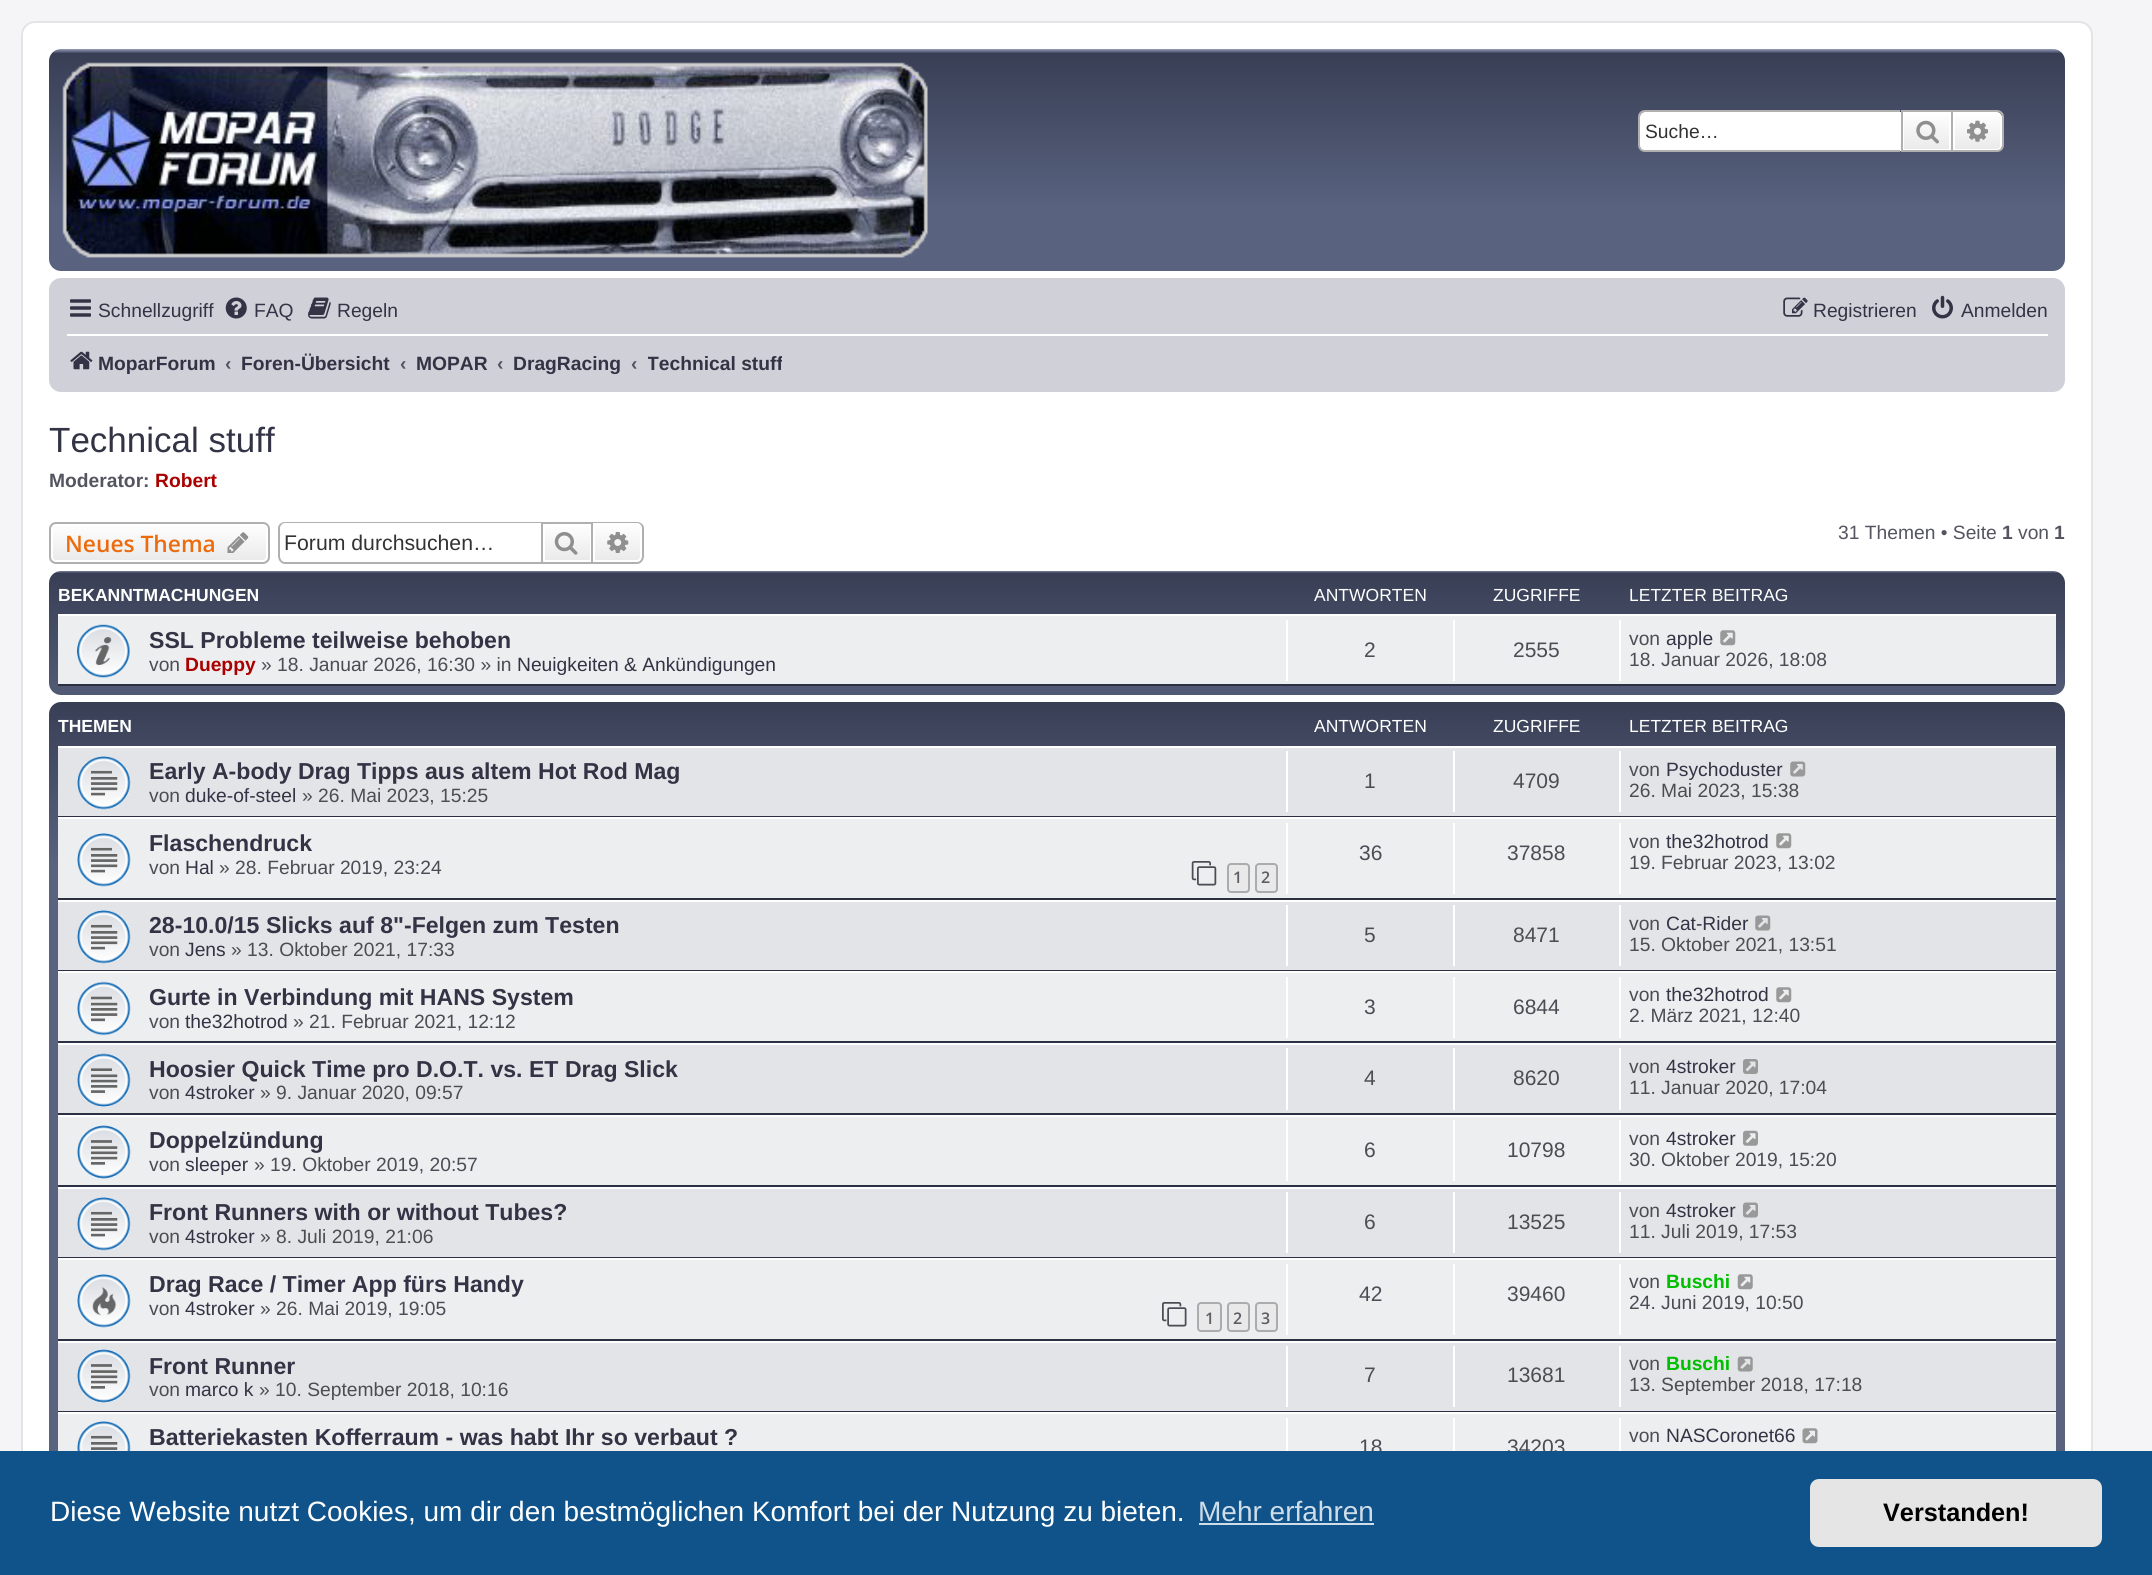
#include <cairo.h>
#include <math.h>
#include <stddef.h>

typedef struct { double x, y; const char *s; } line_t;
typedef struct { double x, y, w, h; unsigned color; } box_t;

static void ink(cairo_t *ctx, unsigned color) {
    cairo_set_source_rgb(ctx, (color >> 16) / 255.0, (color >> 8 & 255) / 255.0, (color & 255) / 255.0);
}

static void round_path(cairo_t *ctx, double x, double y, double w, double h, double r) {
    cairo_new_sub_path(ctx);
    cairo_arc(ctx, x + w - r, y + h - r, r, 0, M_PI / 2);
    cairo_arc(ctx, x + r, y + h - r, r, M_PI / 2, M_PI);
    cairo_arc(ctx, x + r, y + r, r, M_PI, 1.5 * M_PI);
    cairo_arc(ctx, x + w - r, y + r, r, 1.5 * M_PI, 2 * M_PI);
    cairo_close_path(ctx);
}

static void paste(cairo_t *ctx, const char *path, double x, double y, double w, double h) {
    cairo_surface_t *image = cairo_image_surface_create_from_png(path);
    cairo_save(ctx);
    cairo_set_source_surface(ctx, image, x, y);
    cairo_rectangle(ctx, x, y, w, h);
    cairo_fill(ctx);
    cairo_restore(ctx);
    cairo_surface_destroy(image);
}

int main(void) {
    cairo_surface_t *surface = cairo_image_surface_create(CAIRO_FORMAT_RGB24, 2152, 1575);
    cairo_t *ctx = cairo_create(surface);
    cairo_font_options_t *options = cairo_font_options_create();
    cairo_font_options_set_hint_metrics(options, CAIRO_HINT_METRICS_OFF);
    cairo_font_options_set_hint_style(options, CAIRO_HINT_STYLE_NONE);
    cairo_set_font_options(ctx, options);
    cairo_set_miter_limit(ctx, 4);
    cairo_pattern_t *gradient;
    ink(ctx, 0xF5F5F7);
    cairo_paint(ctx);
    ink(ctx, 0xFFFFFF);
    round_path(ctx, 22, 22, 2070, 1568, 13);
    cairo_fill_preserve(ctx);
    ink(ctx, 0xE4E4E6);
    cairo_stroke(ctx);
    gradient = cairo_pattern_create_linear(1057, 49, 1057, 271);
    cairo_pattern_add_color_stop_rgba(gradient, 0, 0.584, 0.616, 0.729, 1);
    cairo_pattern_add_color_stop_rgba(gradient, 0.02, 0.22, 0.247, 0.333, 1);
    cairo_pattern_add_color_stop_rgba(gradient, 0.72, 0.349, 0.384, 0.498, 1);
    cairo_pattern_add_color_stop_rgba(gradient, 1, 0.349, 0.384, 0.498, 1);
    cairo_set_source(ctx, gradient);
    cairo_pattern_destroy(gradient);
    round_path(ctx, 49, 49, 2016, 222, 12);
    cairo_fill(ctx);
    paste(ctx, "media/1.png", 62, 62, 866, 196);
    ink(ctx, 0xFFFFFF);
    cairo_new_path(ctx);
    cairo_move_to(ctx, 1645, 112);
    cairo_line_to(ctx, 1901, 112);
    cairo_line_to(ctx, 1901, 151);
    cairo_line_to(ctx, 1645, 151);
    cairo_curve_to(ctx, 1642, 151, 1640, 149, 1640, 146);
    cairo_line_to(ctx, 1640, 117);
    cairo_curve_to(ctx, 1640, 114, 1642, 112, 1645, 112);
    cairo_close_path(ctx);
    cairo_fill(ctx);
    ink(ctx, 0xB1B0AF);
    cairo_set_fill_rule(ctx, CAIRO_FILL_RULE_EVEN_ODD);
    cairo_new_path(ctx);
    cairo_move_to(ctx, 1645, 110);
    cairo_line_to(ctx, 1900, 110);
    cairo_line_to(ctx, 1900, 152);
    cairo_line_to(ctx, 1645, 152);
    cairo_curve_to(ctx, 1641, 152, 1638, 149, 1638, 145);
    cairo_line_to(ctx, 1638, 117);
    cairo_curve_to(ctx, 1638, 113, 1641, 110, 1645, 110);
    cairo_close_path(ctx);
    cairo_move_to(ctx, 1645, 112);
    cairo_line_to(ctx, 1900, 112);
    cairo_line_to(ctx, 1900, 150);
    cairo_line_to(ctx, 1645, 150);
    cairo_curve_to(ctx, 1642, 150, 1640, 148, 1640, 145);
    cairo_line_to(ctx, 1640, 117);
    cairo_curve_to(ctx, 1640, 114, 1642, 112, 1645, 112);
    cairo_close_path(ctx);
    cairo_fill(ctx);
    cairo_select_font_face(ctx, "Liberation Sans", CAIRO_FONT_SLANT_NORMAL, CAIRO_FONT_WEIGHT_NORMAL);
    cairo_set_font_size(ctx, 19.25);
    ink(ctx, 0x333333);
    cairo_move_to(ctx, 1645, 138);
    cairo_show_text(ctx, "Suche…");
    gradient = cairo_pattern_create_linear(1927, 112, 1927, 151);
    cairo_pattern_add_color_stop_rgba(gradient, 0, 1, 1, 1, 1);
    cairo_pattern_add_color_stop_rgba(gradient, 1, 0.914, 0.914, 0.914, 1);
    cairo_set_source(ctx, gradient);
    cairo_pattern_destroy(gradient);
    cairo_rectangle(ctx, 1904, 114, 45, 35);
    cairo_fill(ctx);
    cairo_rectangle(ctx, 1903, 113, 47, 37);
    ink(ctx, 0xFFFFFF);
    cairo_stroke(ctx);
    cairo_rectangle(ctx, 1902, 111, 50, 40);
    ink(ctx, 0xB1B0AF);
    cairo_stroke(ctx);
    paste(ctx, "media/2.png", 1916, 120, 23, 24);
    gradient = cairo_pattern_create_linear(1978, 112, 1978, 151);
    cairo_pattern_add_color_stop_rgba(gradient, 0, 1, 1, 1, 1);
    cairo_pattern_add_color_stop_rgba(gradient, 1, 0.914, 0.914, 0.914, 1);
    cairo_set_source(ctx, gradient);
    cairo_pattern_destroy(gradient);
    cairo_new_path(ctx);
    cairo_move_to(ctx, 1954, 113);
    cairo_line_to(ctx, 1997, 113);
    cairo_curve_to(ctx, 1999, 113, 2001, 115, 2001, 117);
    cairo_line_to(ctx, 2001, 146);
    cairo_curve_to(ctx, 2001, 148, 1999, 150, 1997, 150);
    cairo_line_to(ctx, 1954, 150);
    cairo_close_path(ctx);
    cairo_fill_preserve(ctx);
    ink(ctx, 0xFFFFFF);
    cairo_stroke(ctx);
    ink(ctx, 0xB1B0AF);
    cairo_new_path(ctx);
    cairo_move_to(ctx, 1953, 110);
    cairo_line_to(ctx, 1997, 110);
    cairo_curve_to(ctx, 2001, 110, 2004, 113, 2004, 117);
    cairo_line_to(ctx, 2004, 145);
    cairo_curve_to(ctx, 2004, 149, 2001, 152, 1997, 152);
    cairo_line_to(ctx, 1953, 152);
    cairo_close_path(ctx);
    cairo_move_to(ctx, 1953, 112);
    cairo_line_to(ctx, 1997, 112);
    cairo_curve_to(ctx, 2000, 112, 2002, 114, 2002, 117);
    cairo_line_to(ctx, 2002, 145);
    cairo_curve_to(ctx, 2002, 148, 2000, 150, 1997, 150);
    cairo_line_to(ctx, 1953, 150);
    cairo_close_path(ctx);
    cairo_fill(ctx);
    paste(ctx, "media/3.png", 1967, 120, 21, 22);
    ink(ctx, 0xCFD0D8);
    round_path(ctx, 49, 278, 2016, 114, 12);
    cairo_fill(ctx);
    paste(ctx, "media/4.png", 70, 299, 21, 18);
    ink(ctx, 0x323445);
    cairo_move_to(ctx, 98, 317);
    cairo_show_text(ctx, "Schnellzugriff");
    paste(ctx, "media/5.png", 225, 297, 22, 22);
    cairo_move_to(ctx, 254, 317);
    cairo_show_text(ctx, "FAQ");
    paste(ctx, "media/6.png", 308, 297, 23, 22);
    cairo_move_to(ctx, 337, 317);
    cairo_show_text(ctx, "Regeln");
    paste(ctx, "media/7.png", 1783, 297, 25, 20);
    cairo_move_to(ctx, 1813, 317);
    cairo_show_text(ctx, "Registrieren");
    paste(ctx, "media/8.png", 1932, 295, 21, 24);
    cairo_move_to(ctx, 1961, 317);
    cairo_show_text(ctx, "Anmelden");
    ink(ctx, 0xFFFFFF);
    cairo_rectangle(ctx, 67, 334, 1981, 2);
    cairo_fill(ctx);
    paste(ctx, "media/9.png", 70, 351, 23, 19);
    cairo_select_font_face(ctx, "Liberation Sans", CAIRO_FONT_SLANT_NORMAL, CAIRO_FONT_WEIGHT_BOLD);
    ink(ctx, 0x323445);
    cairo_move_to(ctx, 98, 370);
    cairo_show_text(ctx, "MoparForum");
    ink(ctx, 0x545560);
    cairo_move_to(ctx, 225, 370);
    cairo_show_text(ctx, "‹");
    ink(ctx, 0x323445);
    cairo_move_to(ctx, 241, 370);
    cairo_show_text(ctx, "Foren-Übersicht");
    ink(ctx, 0x545560);
    cairo_move_to(ctx, 400, 370);
    cairo_show_text(ctx, "‹");
    ink(ctx, 0x323445);
    cairo_move_to(ctx, 416, 370);
    cairo_show_text(ctx, "MOPAR");
    ink(ctx, 0x545560);
    cairo_move_to(ctx, 497, 370);
    cairo_show_text(ctx, "‹");
    ink(ctx, 0x323445);
    cairo_move_to(ctx, 513, 370);
    cairo_show_text(ctx, "DragRacing");
    ink(ctx, 0x545560);
    cairo_move_to(ctx, 631, 370);
    cairo_show_text(ctx, "‹");
    cairo_save(ctx);
    cairo_set_fill_rule(ctx, CAIRO_FILL_RULE_WINDING);
    cairo_rectangle(ctx, 648, 341, 134, 42);
    cairo_clip(ctx);
    ink(ctx, 0x323445);
    cairo_move_to(ctx, 647, 370);
    cairo_show_text(ctx, "Technical stuff");
    cairo_restore(ctx);
    cairo_select_font_face(ctx, "Liberation Sans", CAIRO_FONT_SLANT_NORMAL, CAIRO_FONT_WEIGHT_NORMAL);
    cairo_set_font_size(ctx, 35);
    ink(ctx, 0x323445);
    cairo_move_to(ctx, 49, 452);
    cairo_show_text(ctx, "Technical stuff");
    cairo_select_font_face(ctx, "Liberation Sans", CAIRO_FONT_SLANT_NORMAL, CAIRO_FONT_WEIGHT_BOLD);
    cairo_set_font_size(ctx, 19.25);
    ink(ctx, 0x545560);
    cairo_move_to(ctx, 49, 487);
    cairo_show_text(ctx, "Moderator:");
    ink(ctx, 0xAA0000);
    cairo_move_to(ctx, 155, 487);
    cairo_show_text(ctx, "Robert");
    cairo_select_font_face(ctx, "Liberation Sans", CAIRO_FONT_SLANT_NORMAL, CAIRO_FONT_WEIGHT_NORMAL);
    ink(ctx, 0x545560);
    cairo_move_to(ctx, 1838, 539);
    cairo_show_text(ctx, "31 Themen • Seite");
    cairo_select_font_face(ctx, "Liberation Sans", CAIRO_FONT_SLANT_NORMAL, CAIRO_FONT_WEIGHT_BOLD);
    cairo_move_to(ctx, 2002, 539);
    cairo_show_text(ctx, "1");
    cairo_select_font_face(ctx, "Liberation Sans", CAIRO_FONT_SLANT_NORMAL, CAIRO_FONT_WEIGHT_NORMAL);
    cairo_move_to(ctx, 2018, 539);
    cairo_show_text(ctx, "von");
    cairo_select_font_face(ctx, "Liberation Sans", CAIRO_FONT_SLANT_NORMAL, CAIRO_FONT_WEIGHT_BOLD);
    cairo_move_to(ctx, 2054, 539);
    cairo_show_text(ctx, "1");
    cairo_save(ctx);
    cairo_set_fill_rule(ctx, CAIRO_FILL_RULE_WINDING);
    round_path(ctx, 49, 522, 221, 42, 7);
    cairo_clip(ctx);
    gradient = cairo_pattern_create_linear(159, 523, 159, 562);
    cairo_pattern_add_color_stop_rgba(gradient, 0, 1, 1, 1, 1);
    cairo_pattern_add_color_stop_rgba(gradient, 1, 0.914, 0.914, 0.914, 1);
    cairo_set_source(ctx, gradient);
    cairo_pattern_destroy(gradient);
    cairo_rectangle(ctx, 49, 523, 221, 39);
    cairo_fill(ctx);
    cairo_restore(ctx);
    round_path(ctx, 52, 524, 215, 37, 4);
    ink(ctx, 0xFFFFFF);
    cairo_stroke(ctx);
    round_path(ctx, 50, 523, 219, 40, 6);
    ink(ctx, 0xB1B0AF);
    cairo_stroke(ctx);
    cairo_select_font_face(ctx, "Open Sans SemiBold", CAIRO_FONT_SLANT_NORMAL, CAIRO_FONT_WEIGHT_NORMAL);
    cairo_set_font_size(ctx, 22.75);
    ink(ctx, 0xEC6B0E);
    cairo_move_to(ctx, 65, 552);
    cairo_show_text(ctx, "Neues Thema");
    paste(ctx, "media/10.png", 227, 532, 22, 21);
    ink(ctx, 0xB1B0AF);
    cairo_new_path(ctx);
    cairo_move_to(ctx, 285, 522);
    cairo_line_to(ctx, 541, 522);
    cairo_line_to(ctx, 541, 564);
    cairo_line_to(ctx, 285, 564);
    cairo_curve_to(ctx, 281, 564, 278, 560, 278, 556);
    cairo_line_to(ctx, 278, 528);
    cairo_curve_to(ctx, 278, 525, 281, 522, 285, 522);
    cairo_close_path(ctx);
    cairo_move_to(ctx, 285, 523);
    cairo_line_to(ctx, 541, 523);
    cairo_line_to(ctx, 541, 562);
    cairo_line_to(ctx, 285, 562);
    cairo_curve_to(ctx, 282, 562, 280, 559, 280, 556);
    cairo_line_to(ctx, 280, 528);
    cairo_curve_to(ctx, 280, 526, 282, 523, 285, 523);
    cairo_close_path(ctx);
    cairo_fill(ctx);
    cairo_select_font_face(ctx, "Liberation Sans", CAIRO_FONT_SLANT_NORMAL, CAIRO_FONT_WEIGHT_NORMAL);
    cairo_set_font_size(ctx, 21.25);
    ink(ctx, 0x333333);
    cairo_move_to(ctx, 284, 550);
    cairo_show_text(ctx, "Forum durchsuchen…");
    gradient = cairo_pattern_create_linear(567, 523, 567, 562);
    cairo_pattern_add_color_stop_rgba(gradient, 0, 1, 1, 1, 1);
    cairo_pattern_add_color_stop_rgba(gradient, 1, 0.914, 0.914, 0.914, 1);
    cairo_set_source(ctx, gradient);
    cairo_pattern_destroy(gradient);
    cairo_rectangle(ctx, 545, 527, 45, 33);
    cairo_fill(ctx);
    cairo_rectangle(ctx, 542, 523, 50, 40);
    ink(ctx, 0xB1B0AF);
    cairo_stroke(ctx);
    paste(ctx, "media/11.png", 554, 532, 24, 23);
    gradient = cairo_pattern_create_linear(618, 523, 618, 562);
    cairo_pattern_add_color_stop_rgba(gradient, 0, 1, 1, 1, 1);
    cairo_pattern_add_color_stop_rgba(gradient, 1, 0.914, 0.914, 0.914, 1);
    cairo_set_source(ctx, gradient);
    cairo_pattern_destroy(gradient);
    cairo_new_path(ctx);
    cairo_move_to(ctx, 594, 524);
    cairo_line_to(ctx, 637, 524);
    cairo_curve_to(ctx, 639, 524, 641, 526, 641, 528);
    cairo_line_to(ctx, 641, 557);
    cairo_curve_to(ctx, 641, 559, 639, 561, 637, 561);
    cairo_line_to(ctx, 594, 561);
    cairo_close_path(ctx);
    cairo_fill_preserve(ctx);
    ink(ctx, 0xFFFFFF);
    cairo_stroke(ctx);
    ink(ctx, 0xB1B0AF);
    cairo_new_path(ctx);
    cairo_move_to(ctx, 593, 522);
    cairo_line_to(ctx, 637, 522);
    cairo_curve_to(ctx, 641, 522, 644, 525, 644, 528);
    cairo_line_to(ctx, 644, 556);
    cairo_curve_to(ctx, 644, 560, 641, 564, 637, 564);
    cairo_line_to(ctx, 593, 564);
    cairo_close_path(ctx);
    cairo_move_to(ctx, 593, 523);
    cairo_line_to(ctx, 637, 523);
    cairo_curve_to(ctx, 640, 523, 642, 526, 642, 528);
    cairo_line_to(ctx, 642, 556);
    cairo_curve_to(ctx, 642, 559, 640, 562, 637, 562);
    cairo_line_to(ctx, 593, 562);
    cairo_close_path(ctx);
    cairo_fill(ctx);
    paste(ctx, "media/12.png", 607, 532, 22, 21);
    gradient = cairo_pattern_create_linear(1057, 570, 1057, 731);
    cairo_pattern_add_color_stop_rgba(gradient, 0, 0.584, 0.616, 0.729, 1);
    cairo_pattern_add_color_stop_rgba(gradient, 0.02, 0.22, 0.247, 0.333, 1);
    cairo_pattern_add_color_stop_rgba(gradient, 1, 0.349, 0.384, 0.498, 1);
    cairo_set_source(ctx, gradient);
    cairo_pattern_destroy(gradient);
    round_path(ctx, 49, 571, 2016, 124, 12);
    cairo_fill(ctx);
    cairo_select_font_face(ctx, "Liberation Sans", CAIRO_FONT_SLANT_NORMAL, CAIRO_FONT_WEIGHT_BOLD);
    cairo_set_font_size(ctx, 17.5);
    ink(ctx, 0xFFFFFF);
    cairo_move_to(ctx, 58, 601);
    cairo_show_text(ctx, "BEKANNTMACHUNGEN");
    cairo_select_font_face(ctx, "Liberation Sans", CAIRO_FONT_SLANT_NORMAL, CAIRO_FONT_WEIGHT_NORMAL);
    {
        static const line_t items[] = {
            {1314, 601, "ANTWORTEN"},
            {1493, 601, "ZUGRIFFE"},
            {1629, 601, "LETZTER BEITRAG"},
        };
        for (size_t i = 0; i < sizeof items / sizeof *items; i++) {
            cairo_move_to(ctx, items[i].x, items[i].y);
            cairo_show_text(ctx, items[i].s);
        }
    }
    {
        static const box_t items[] = {
            {58, 616, 1998, 68, 0xEDEEF0},
            {58, 614, 1998, 2, 0xFFFFFF},
            {58, 684, 1998, 2, 0x2B3143},
        };
        for (size_t i = 0; i < sizeof items / sizeof *items; i++) {
            ink(ctx, items[i].color);
            cairo_rectangle(ctx, items[i].x, items[i].y, items[i].w, items[i].h);
            cairo_fill(ctx);
        }
    }
    paste(ctx, "media/13.png", 77, 624, 53, 54);
    cairo_select_font_face(ctx, "Liberation Sans", CAIRO_FONT_SLANT_NORMAL, CAIRO_FONT_WEIGHT_BOLD);
    cairo_set_font_size(ctx, 23.1);
    ink(ctx, 0x323445);
    cairo_move_to(ctx, 149, 648);
    cairo_show_text(ctx, "SSL Probleme teilweise behoben");
    cairo_select_font_face(ctx, "Liberation Sans", CAIRO_FONT_SLANT_NORMAL, CAIRO_FONT_WEIGHT_NORMAL);
    cairo_set_font_size(ctx, 19.25);
    ink(ctx, 0x4C4C54);
    cairo_move_to(ctx, 149, 671);
    cairo_show_text(ctx, "von");
    cairo_select_font_face(ctx, "Liberation Sans", CAIRO_FONT_SLANT_NORMAL, CAIRO_FONT_WEIGHT_BOLD);
    ink(ctx, 0xAA0000);
    cairo_move_to(ctx, 185, 671);
    cairo_show_text(ctx, "Dueppy");
    cairo_select_font_face(ctx, "Liberation Sans", CAIRO_FONT_SLANT_NORMAL, CAIRO_FONT_WEIGHT_NORMAL);
    ink(ctx, 0x4C4C54);
    cairo_move_to(ctx, 261, 671);
    cairo_show_text(ctx, "» 18. Januar 2026, 16:30 » in");
    ink(ctx, 0x323445);
    cairo_move_to(ctx, 517, 671);
    cairo_show_text(ctx, "Neuigkeiten & Ankündigungen");
    ink(ctx, 0xFFFFFF);
    cairo_rectangle(ctx, 1286, 620, 2, 61);
    cairo_fill(ctx);
    cairo_set_font_size(ctx, 21);
    ink(ctx, 0x4C4C54);
    cairo_move_to(ctx, 1364, 657);
    cairo_show_text(ctx, "2");
    ink(ctx, 0xFFFFFF);
    cairo_rectangle(ctx, 1453, 620, 2, 61);
    cairo_fill(ctx);
    ink(ctx, 0x4C4C54);
    cairo_move_to(ctx, 1513, 657);
    cairo_show_text(ctx, "2555");
    ink(ctx, 0xFFFFFF);
    cairo_rectangle(ctx, 1619, 620, 2, 61);
    cairo_fill(ctx);
    cairo_set_font_size(ctx, 19.25);
    ink(ctx, 0x4C4C54);
    cairo_move_to(ctx, 1629, 645);
    cairo_show_text(ctx, "von");
    ink(ctx, 0x323445);
    cairo_move_to(ctx, 1666, 645);
    cairo_show_text(ctx, "apple");
    paste(ctx, "media/14.png", 1720, 630, 16, 16);
    ink(ctx, 0x4C4C54);
    cairo_move_to(ctx, 1629, 666);
    cairo_show_text(ctx, "18. Januar 2026, 18:08");
    gradient = cairo_pattern_create_linear(1057, 702, 1057, 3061);
    cairo_pattern_add_color_stop_rgba(gradient, 0, 0.584, 0.616, 0.729, 1);
    cairo_pattern_add_color_stop_rgba(gradient, 0, 0.22, 0.247, 0.333, 1);
    cairo_pattern_add_color_stop_rgba(gradient, 0.07, 0.349, 0.384, 0.498, 1);
    cairo_pattern_add_color_stop_rgba(gradient, 1, 0.349, 0.384, 0.498, 1);
    cairo_set_source(ctx, gradient);
    cairo_pattern_destroy(gradient);
    round_path(ctx, 49, 702, 2016, 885, 12);
    cairo_fill(ctx);
    cairo_select_font_face(ctx, "Liberation Sans", CAIRO_FONT_SLANT_NORMAL, CAIRO_FONT_WEIGHT_BOLD);
    cairo_set_font_size(ctx, 17.5);
    ink(ctx, 0xFFFFFF);
    cairo_move_to(ctx, 58, 732);
    cairo_show_text(ctx, "THEMEN");
    cairo_select_font_face(ctx, "Liberation Sans", CAIRO_FONT_SLANT_NORMAL, CAIRO_FONT_WEIGHT_NORMAL);
    {
        static const line_t items[] = {
            {1314, 732, "ANTWORTEN"},
            {1493, 732, "ZUGRIFFE"},
            {1629, 732, "LETZTER BEITRAG"},
        };
        for (size_t i = 0; i < sizeof items / sizeof *items; i++) {
            cairo_move_to(ctx, items[i].x, items[i].y);
            cairo_show_text(ctx, items[i].s);
        }
    }
    {
        static const box_t items[] = {
            {58, 748, 1998, 68, 0xE3E4E7},
            {58, 746, 1998, 2, 0xFFFFFF},
            {58, 816, 1998, 1, 0x2B3143},
        };
        for (size_t i = 0; i < sizeof items / sizeof *items; i++) {
            ink(ctx, items[i].color);
            cairo_rectangle(ctx, items[i].x, items[i].y, items[i].w, items[i].h);
            cairo_fill(ctx);
        }
    }
    paste(ctx, "media/15.png", 77, 756, 54, 54);
    cairo_select_font_face(ctx, "Liberation Sans", CAIRO_FONT_SLANT_NORMAL, CAIRO_FONT_WEIGHT_BOLD);
    cairo_set_font_size(ctx, 23.1);
    ink(ctx, 0x323445);
    cairo_move_to(ctx, 149, 779);
    cairo_show_text(ctx, "Early A-body Drag Tipps aus altem Hot Rod Mag");
    cairo_select_font_face(ctx, "Liberation Sans", CAIRO_FONT_SLANT_NORMAL, CAIRO_FONT_WEIGHT_NORMAL);
    cairo_set_font_size(ctx, 19.25);
    ink(ctx, 0x4C4C54);
    cairo_move_to(ctx, 149, 802);
    cairo_show_text(ctx, "von");
    ink(ctx, 0x323445);
    cairo_move_to(ctx, 185, 802);
    cairo_show_text(ctx, "duke-of-steel");
    ink(ctx, 0x4C4C54);
    cairo_move_to(ctx, 302, 802);
    cairo_show_text(ctx, "» 26. Mai 2023, 15:25");
    ink(ctx, 0xFFFFFF);
    cairo_rectangle(ctx, 1286, 751, 2, 61);
    cairo_fill(ctx);
    cairo_set_font_size(ctx, 21);
    ink(ctx, 0x4C4C54);
    cairo_move_to(ctx, 1364, 788);
    cairo_show_text(ctx, "1");
    ink(ctx, 0xFFFFFF);
    cairo_rectangle(ctx, 1453, 751, 2, 61);
    cairo_fill(ctx);
    ink(ctx, 0x4C4C54);
    cairo_move_to(ctx, 1513, 788);
    cairo_show_text(ctx, "4709");
    ink(ctx, 0xFFFFFF);
    cairo_rectangle(ctx, 1619, 751, 2, 61);
    cairo_fill(ctx);
    cairo_set_font_size(ctx, 19.25);
    ink(ctx, 0x4C4C54);
    cairo_move_to(ctx, 1629, 776);
    cairo_show_text(ctx, "von");
    ink(ctx, 0x323445);
    cairo_move_to(ctx, 1666, 776);
    cairo_show_text(ctx, "Psychoduster");
    paste(ctx, "media/16.png", 1790, 761, 16, 16);
    ink(ctx, 0x4C4C54);
    cairo_move_to(ctx, 1629, 797);
    cairo_show_text(ctx, "26. Mai 2023, 15:38");
    {
        static const box_t items[] = {
            {58, 819, 1998, 79, 0xEDEEF0},
            {58, 817, 1998, 2, 0xFFFFFF},
            {58, 898, 1998, 2, 0x2B3143},
        };
        for (size_t i = 0; i < sizeof items / sizeof *items; i++) {
            ink(ctx, items[i].color);
            cairo_rectangle(ctx, items[i].x, items[i].y, items[i].w, items[i].h);
            cairo_fill(ctx);
        }
    }
    paste(ctx, "media/17.png", 77, 833, 54, 54);
    cairo_select_font_face(ctx, "Liberation Sans", CAIRO_FONT_SLANT_NORMAL, CAIRO_FONT_WEIGHT_BOLD);
    cairo_set_font_size(ctx, 23.1);
    ink(ctx, 0x323445);
    cairo_move_to(ctx, 149, 851);
    cairo_show_text(ctx, "Flaschendruck");
    cairo_select_font_face(ctx, "Liberation Sans", CAIRO_FONT_SLANT_NORMAL, CAIRO_FONT_WEIGHT_NORMAL);
    cairo_set_font_size(ctx, 19.25);
    ink(ctx, 0x4C4C54);
    cairo_move_to(ctx, 149, 874);
    cairo_show_text(ctx, "von");
    ink(ctx, 0x323445);
    cairo_move_to(ctx, 185, 874);
    cairo_show_text(ctx, "Hal");
    ink(ctx, 0x4C4C54);
    cairo_move_to(ctx, 219, 874);
    cairo_show_text(ctx, "» 28. Februar 2019, 23:24");
    paste(ctx, "media/18.png", 1191, 861, 26, 25);
    ink(ctx, 0xE9E9EA);
    round_path(ctx, 1228, 864, 21, 28, 3);
    cairo_fill_preserve(ctx);
    ink(ctx, 0xACACAF);
    cairo_stroke(ctx);
    cairo_select_font_face(ctx, "Open Sans SemiBold", CAIRO_FONT_SLANT_NORMAL, CAIRO_FONT_WEIGHT_NORMAL);
    cairo_set_font_size(ctx, 16);
    ink(ctx, 0x5D5E65);
    cairo_move_to(ctx, 1233, 883);
    cairo_show_text(ctx, "1");
    ink(ctx, 0xE9E9EA);
    round_path(ctx, 1256, 864, 21, 28, 3);
    cairo_fill_preserve(ctx);
    ink(ctx, 0xACACAF);
    cairo_stroke(ctx);
    ink(ctx, 0x5D5E65);
    cairo_move_to(ctx, 1261, 883);
    cairo_show_text(ctx, "2");
    ink(ctx, 0xFFFFFF);
    cairo_rectangle(ctx, 1286, 823, 2, 71);
    cairo_fill(ctx);
    cairo_select_font_face(ctx, "Liberation Sans", CAIRO_FONT_SLANT_NORMAL, CAIRO_FONT_WEIGHT_NORMAL);
    cairo_set_font_size(ctx, 21);
    ink(ctx, 0x4C4C54);
    cairo_move_to(ctx, 1359, 860);
    cairo_show_text(ctx, "36");
    ink(ctx, 0xFFFFFF);
    cairo_rectangle(ctx, 1453, 823, 2, 71);
    cairo_fill(ctx);
    ink(ctx, 0x4C4C54);
    cairo_move_to(ctx, 1507, 860);
    cairo_show_text(ctx, "37858");
    ink(ctx, 0xFFFFFF);
    cairo_rectangle(ctx, 1619, 823, 2, 71);
    cairo_fill(ctx);
    cairo_set_font_size(ctx, 19.25);
    ink(ctx, 0x4C4C54);
    cairo_move_to(ctx, 1629, 848);
    cairo_show_text(ctx, "von");
    ink(ctx, 0x323445);
    cairo_move_to(ctx, 1666, 848);
    cairo_show_text(ctx, "the32hotrod");
    paste(ctx, "media/14.png", 1776, 833, 16, 16);
    ink(ctx, 0x4C4C54);
    cairo_move_to(ctx, 1629, 869);
    cairo_show_text(ctx, "19. Februar 2023, 13:02");
    {
        static const box_t items[] = {
            {58, 902, 1998, 68, 0xE3E4E7},
            {58, 900, 1998, 2, 0xFFFFFF},
            {58, 970, 1998, 1, 0x2B3143},
        };
        for (size_t i = 0; i < sizeof items / sizeof *items; i++) {
            ink(ctx, items[i].color);
            cairo_rectangle(ctx, items[i].x, items[i].y, items[i].w, items[i].h);
            cairo_fill(ctx);
        }
    }
    paste(ctx, "media/15.png", 77, 910, 54, 54);
    cairo_select_font_face(ctx, "Liberation Sans", CAIRO_FONT_SLANT_NORMAL, CAIRO_FONT_WEIGHT_BOLD);
    cairo_set_font_size(ctx, 23.1);
    ink(ctx, 0x323445);
    cairo_move_to(ctx, 149, 933);
    cairo_show_text(ctx, "28-10.0/15 Slicks auf 8\"-Felgen zum Testen");
    cairo_select_font_face(ctx, "Liberation Sans", CAIRO_FONT_SLANT_NORMAL, CAIRO_FONT_WEIGHT_NORMAL);
    cairo_set_font_size(ctx, 19.25);
    ink(ctx, 0x4C4C54);
    cairo_move_to(ctx, 149, 956);
    cairo_show_text(ctx, "von");
    ink(ctx, 0x323445);
    cairo_move_to(ctx, 185, 956);
    cairo_show_text(ctx, "Jens");
    ink(ctx, 0x4C4C54);
    cairo_move_to(ctx, 231, 956);
    cairo_show_text(ctx, "» 13. Oktober 2021, 17:33");
    ink(ctx, 0xFFFFFF);
    cairo_rectangle(ctx, 1286, 905, 2, 61);
    cairo_fill(ctx);
    cairo_set_font_size(ctx, 21);
    ink(ctx, 0x4C4C54);
    cairo_move_to(ctx, 1364, 942);
    cairo_show_text(ctx, "5");
    ink(ctx, 0xFFFFFF);
    cairo_rectangle(ctx, 1453, 905, 2, 61);
    cairo_fill(ctx);
    ink(ctx, 0x4C4C54);
    cairo_move_to(ctx, 1513, 942);
    cairo_show_text(ctx, "8471");
    ink(ctx, 0xFFFFFF);
    cairo_rectangle(ctx, 1619, 905, 2, 61);
    cairo_fill(ctx);
    cairo_set_font_size(ctx, 19.25);
    ink(ctx, 0x4C4C54);
    cairo_move_to(ctx, 1629, 930);
    cairo_show_text(ctx, "von");
    ink(ctx, 0x323445);
    cairo_move_to(ctx, 1666, 930);
    cairo_show_text(ctx, "Cat-Rider");
    paste(ctx, "media/19.png", 1755, 915, 16, 16);
    ink(ctx, 0x4C4C54);
    cairo_move_to(ctx, 1629, 951);
    cairo_show_text(ctx, "15. Oktober 2021, 13:51");
    {
        static const box_t items[] = {
            {58, 973, 1998, 68, 0xEDEEF0},
            {58, 971, 1998, 2, 0xFFFFFF},
            {58, 1041, 1998, 2, 0x2B3143},
        };
        for (size_t i = 0; i < sizeof items / sizeof *items; i++) {
            ink(ctx, items[i].color);
            cairo_rectangle(ctx, items[i].x, items[i].y, items[i].w, items[i].h);
            cairo_fill(ctx);
        }
    }
    paste(ctx, "media/20.png", 77, 981, 54, 55);
    cairo_select_font_face(ctx, "Liberation Sans", CAIRO_FONT_SLANT_NORMAL, CAIRO_FONT_WEIGHT_BOLD);
    cairo_set_font_size(ctx, 23.1);
    ink(ctx, 0x323445);
    cairo_move_to(ctx, 149, 1005);
    cairo_show_text(ctx, "Gurte in Verbindung mit HANS System");
    cairo_select_font_face(ctx, "Liberation Sans", CAIRO_FONT_SLANT_NORMAL, CAIRO_FONT_WEIGHT_NORMAL);
    cairo_set_font_size(ctx, 19.25);
    ink(ctx, 0x4C4C54);
    cairo_move_to(ctx, 149, 1028);
    cairo_show_text(ctx, "von");
    ink(ctx, 0x323445);
    cairo_move_to(ctx, 185, 1028);
    cairo_show_text(ctx, "the32hotrod");
    ink(ctx, 0x4C4C54);
    cairo_move_to(ctx, 293, 1028);
    cairo_show_text(ctx, "» 21. Februar 2021, 12:12");
    ink(ctx, 0xFFFFFF);
    cairo_rectangle(ctx, 1286, 977, 2, 61);
    cairo_fill(ctx);
    cairo_set_font_size(ctx, 21);
    ink(ctx, 0x4C4C54);
    cairo_move_to(ctx, 1364, 1014);
    cairo_show_text(ctx, "3");
    ink(ctx, 0xFFFFFF);
    cairo_rectangle(ctx, 1453, 977, 2, 61);
    cairo_fill(ctx);
    ink(ctx, 0x4C4C54);
    cairo_move_to(ctx, 1513, 1014);
    cairo_show_text(ctx, "6844");
    ink(ctx, 0xFFFFFF);
    cairo_rectangle(ctx, 1619, 977, 2, 61);
    cairo_fill(ctx);
    cairo_set_font_size(ctx, 19.25);
    ink(ctx, 0x4C4C54);
    cairo_move_to(ctx, 1629, 1001);
    cairo_show_text(ctx, "von");
    ink(ctx, 0x323445);
    cairo_move_to(ctx, 1666, 1001);
    cairo_show_text(ctx, "the32hotrod");
    paste(ctx, "media/21.png", 1776, 987, 16, 16);
    ink(ctx, 0x4C4C54);
    cairo_move_to(ctx, 1629, 1022);
    cairo_show_text(ctx, "2. März 2021, 12:40");
    {
        static const box_t items[] = {
            {58, 1045, 1998, 68, 0xE3E4E7},
            {58, 1043, 1998, 2, 0xFFFFFF},
            {58, 1113, 1998, 2, 0x2B3143},
        };
        for (size_t i = 0; i < sizeof items / sizeof *items; i++) {
            ink(ctx, items[i].color);
            cairo_rectangle(ctx, items[i].x, items[i].y, items[i].w, items[i].h);
            cairo_fill(ctx);
        }
    }
    paste(ctx, "media/22.png", 77, 1053, 54, 54);
    cairo_select_font_face(ctx, "Liberation Sans", CAIRO_FONT_SLANT_NORMAL, CAIRO_FONT_WEIGHT_BOLD);
    cairo_set_font_size(ctx, 23.1);
    ink(ctx, 0x323445);
    cairo_move_to(ctx, 149, 1077);
    cairo_show_text(ctx, "Hoosier Quick Time pro D.O.T. vs. ET Drag Slick");
    cairo_select_font_face(ctx, "Liberation Sans", CAIRO_FONT_SLANT_NORMAL, CAIRO_FONT_WEIGHT_NORMAL);
    cairo_set_font_size(ctx, 19.25);
    ink(ctx, 0x4C4C54);
    cairo_move_to(ctx, 149, 1099);
    cairo_show_text(ctx, "von");
    ink(ctx, 0x323445);
    cairo_move_to(ctx, 185, 1099);
    cairo_show_text(ctx, "4stroker");
    ink(ctx, 0x4C4C54);
    cairo_move_to(ctx, 260, 1099);
    cairo_show_text(ctx, "» 9. Januar 2020, 09:57");
    ink(ctx, 0xFFFFFF);
    cairo_rectangle(ctx, 1286, 1048, 2, 62);
    cairo_fill(ctx);
    cairo_set_font_size(ctx, 21);
    ink(ctx, 0x4C4C54);
    cairo_move_to(ctx, 1364, 1085);
    cairo_show_text(ctx, "4");
    ink(ctx, 0xFFFFFF);
    cairo_rectangle(ctx, 1453, 1048, 2, 62);
    cairo_fill(ctx);
    ink(ctx, 0x4C4C54);
    cairo_move_to(ctx, 1513, 1085);
    cairo_show_text(ctx, "8620");
    ink(ctx, 0xFFFFFF);
    cairo_rectangle(ctx, 1619, 1048, 2, 62);
    cairo_fill(ctx);
    cairo_set_font_size(ctx, 19.25);
    ink(ctx, 0x4C4C54);
    cairo_move_to(ctx, 1629, 1073);
    cairo_show_text(ctx, "von");
    ink(ctx, 0x323445);
    cairo_move_to(ctx, 1666, 1073);
    cairo_show_text(ctx, "4stroker");
    paste(ctx, "media/23.png", 1743, 1059, 15, 15);
    ink(ctx, 0x4C4C54);
    cairo_move_to(ctx, 1629, 1094);
    cairo_show_text(ctx, "11. Januar 2020, 17:04");
    {
        static const box_t items[] = {
            {58, 1117, 1998, 68, 0xEDEEF0},
            {58, 1115, 1998, 2, 0xFFFFFF},
            {58, 1185, 1998, 2, 0x2B3143},
        };
        for (size_t i = 0; i < sizeof items / sizeof *items; i++) {
            ink(ctx, items[i].color);
            cairo_rectangle(ctx, items[i].x, items[i].y, items[i].w, items[i].h);
            cairo_fill(ctx);
        }
    }
    paste(ctx, "media/24.png", 77, 1125, 54, 54);
    cairo_select_font_face(ctx, "Liberation Sans", CAIRO_FONT_SLANT_NORMAL, CAIRO_FONT_WEIGHT_BOLD);
    cairo_set_font_size(ctx, 23.1);
    ink(ctx, 0x323445);
    cairo_move_to(ctx, 149, 1148);
    cairo_show_text(ctx, "Doppelzündung");
    cairo_select_font_face(ctx, "Liberation Sans", CAIRO_FONT_SLANT_NORMAL, CAIRO_FONT_WEIGHT_NORMAL);
    cairo_set_font_size(ctx, 19.25);
    ink(ctx, 0x4C4C54);
    cairo_move_to(ctx, 149, 1171);
    cairo_show_text(ctx, "von");
    ink(ctx, 0x323445);
    cairo_move_to(ctx, 185, 1171);
    cairo_show_text(ctx, "sleeper");
    ink(ctx, 0x4C4C54);
    cairo_move_to(ctx, 254, 1171);
    cairo_show_text(ctx, "» 19. Oktober 2019, 20:57");
    ink(ctx, 0xFFFFFF);
    cairo_rectangle(ctx, 1286, 1120, 2, 61);
    cairo_fill(ctx);
    cairo_set_font_size(ctx, 21);
    ink(ctx, 0x4C4C54);
    cairo_move_to(ctx, 1364, 1157);
    cairo_show_text(ctx, "6");
    ink(ctx, 0xFFFFFF);
    cairo_rectangle(ctx, 1453, 1120, 2, 61);
    cairo_fill(ctx);
    ink(ctx, 0x4C4C54);
    cairo_move_to(ctx, 1507, 1157);
    cairo_show_text(ctx, "10798");
    ink(ctx, 0xFFFFFF);
    cairo_rectangle(ctx, 1619, 1120, 2, 61);
    cairo_fill(ctx);
    cairo_set_font_size(ctx, 19.25);
    ink(ctx, 0x4C4C54);
    cairo_move_to(ctx, 1629, 1145);
    cairo_show_text(ctx, "von");
    ink(ctx, 0x323445);
    cairo_move_to(ctx, 1666, 1145);
    cairo_show_text(ctx, "4stroker");
    paste(ctx, "media/25.png", 1743, 1130, 15, 16);
    ink(ctx, 0x4C4C54);
    cairo_move_to(ctx, 1629, 1166);
    cairo_show_text(ctx, "30. Oktober 2019, 15:20");
    {
        static const box_t items[] = {
            {58, 1189, 1998, 68, 0xE3E4E7},
            {58, 1187, 1998, 2, 0xFFFFFF},
            {58, 1257, 1998, 1, 0x2B3143},
        };
        for (size_t i = 0; i < sizeof items / sizeof *items; i++) {
            ink(ctx, items[i].color);
            cairo_rectangle(ctx, items[i].x, items[i].y, items[i].w, items[i].h);
            cairo_fill(ctx);
        }
    }
    paste(ctx, "media/15.png", 77, 1197, 54, 54);
    cairo_select_font_face(ctx, "Liberation Sans", CAIRO_FONT_SLANT_NORMAL, CAIRO_FONT_WEIGHT_BOLD);
    cairo_set_font_size(ctx, 23.1);
    ink(ctx, 0x323445);
    cairo_move_to(ctx, 149, 1220);
    cairo_show_text(ctx, "Front Runners with or without Tubes?");
    cairo_select_font_face(ctx, "Liberation Sans", CAIRO_FONT_SLANT_NORMAL, CAIRO_FONT_WEIGHT_NORMAL);
    cairo_set_font_size(ctx, 19.25);
    ink(ctx, 0x4C4C54);
    cairo_move_to(ctx, 149, 1243);
    cairo_show_text(ctx, "von");
    ink(ctx, 0x323445);
    cairo_move_to(ctx, 185, 1243);
    cairo_show_text(ctx, "4stroker");
    ink(ctx, 0x4C4C54);
    cairo_move_to(ctx, 260, 1243);
    cairo_show_text(ctx, "» 8. Juli 2019, 21:06");
    ink(ctx, 0xFFFFFF);
    cairo_rectangle(ctx, 1286, 1192, 2, 61);
    cairo_fill(ctx);
    cairo_set_font_size(ctx, 21);
    ink(ctx, 0x4C4C54);
    cairo_move_to(ctx, 1364, 1229);
    cairo_show_text(ctx, "6");
    ink(ctx, 0xFFFFFF);
    cairo_rectangle(ctx, 1453, 1192, 2, 61);
    cairo_fill(ctx);
    ink(ctx, 0x4C4C54);
    cairo_move_to(ctx, 1507, 1229);
    cairo_show_text(ctx, "13525");
    ink(ctx, 0xFFFFFF);
    cairo_rectangle(ctx, 1619, 1192, 2, 61);
    cairo_fill(ctx);
    cairo_set_font_size(ctx, 19.25);
    ink(ctx, 0x4C4C54);
    cairo_move_to(ctx, 1629, 1217);
    cairo_show_text(ctx, "von");
    ink(ctx, 0x323445);
    cairo_move_to(ctx, 1666, 1217);
    cairo_show_text(ctx, "4stroker");
    paste(ctx, "media/26.png", 1743, 1202, 15, 16);
    ink(ctx, 0x4C4C54);
    cairo_move_to(ctx, 1629, 1238);
    cairo_show_text(ctx, "11. Juli 2019, 17:53");
    {
        static const box_t items[] = {
            {58, 1260, 1998, 79, 0xEDEEF0},
            {58, 1258, 1998, 2, 0xFFFFFF},
            {58, 1339, 1998, 2, 0x2B3143},
        };
        for (size_t i = 0; i < sizeof items / sizeof *items; i++) {
            ink(ctx, items[i].color);
            cairo_rectangle(ctx, items[i].x, items[i].y, items[i].w, items[i].h);
            cairo_fill(ctx);
        }
    }
    paste(ctx, "media/27.png", 77, 1274, 54, 54);
    cairo_select_font_face(ctx, "Liberation Sans", CAIRO_FONT_SLANT_NORMAL, CAIRO_FONT_WEIGHT_BOLD);
    cairo_set_font_size(ctx, 23.1);
    ink(ctx, 0x323445);
    cairo_move_to(ctx, 149, 1292);
    cairo_show_text(ctx, "Drag Race / Timer App fürs Handy");
    cairo_select_font_face(ctx, "Liberation Sans", CAIRO_FONT_SLANT_NORMAL, CAIRO_FONT_WEIGHT_NORMAL);
    cairo_set_font_size(ctx, 19.25);
    ink(ctx, 0x4C4C54);
    cairo_move_to(ctx, 149, 1315);
    cairo_show_text(ctx, "von");
    ink(ctx, 0x323445);
    cairo_move_to(ctx, 185, 1315);
    cairo_show_text(ctx, "4stroker");
    ink(ctx, 0x4C4C54);
    cairo_move_to(ctx, 260, 1315);
    cairo_show_text(ctx, "» 26. Mai 2019, 19:05");
    paste(ctx, "media/28.png", 1162, 1302, 25, 25);
    ink(ctx, 0xE9E9EA);
    round_path(ctx, 1198, 1303, 23, 28, 3);
    cairo_fill_preserve(ctx);
    ink(ctx, 0xACACAF);
    cairo_stroke(ctx);
    cairo_select_font_face(ctx, "Open Sans SemiBold", CAIRO_FONT_SLANT_NORMAL, CAIRO_FONT_WEIGHT_NORMAL);
    cairo_set_font_size(ctx, 16);
    ink(ctx, 0x5D5E65);
    cairo_move_to(ctx, 1205, 1324);
    cairo_show_text(ctx, "1");
    ink(ctx, 0xE9E9EA);
    round_path(ctx, 1228, 1303, 21, 28, 3);
    cairo_fill_preserve(ctx);
    ink(ctx, 0xACACAF);
    cairo_stroke(ctx);
    ink(ctx, 0x5D5E65);
    cairo_move_to(ctx, 1233, 1324);
    cairo_show_text(ctx, "2");
    ink(ctx, 0xE9E9EA);
    round_path(ctx, 1256, 1303, 21, 28, 3);
    cairo_fill_preserve(ctx);
    ink(ctx, 0xACACAF);
    cairo_stroke(ctx);
    ink(ctx, 0x5D5E65);
    cairo_move_to(ctx, 1261, 1324);
    cairo_show_text(ctx, "3");
    ink(ctx, 0xFFFFFF);
    cairo_rectangle(ctx, 1286, 1264, 2, 71);
    cairo_fill(ctx);
    cairo_select_font_face(ctx, "Liberation Sans", CAIRO_FONT_SLANT_NORMAL, CAIRO_FONT_WEIGHT_NORMAL);
    cairo_set_font_size(ctx, 21);
    ink(ctx, 0x4C4C54);
    cairo_move_to(ctx, 1359, 1301);
    cairo_show_text(ctx, "42");
    ink(ctx, 0xFFFFFF);
    cairo_rectangle(ctx, 1453, 1264, 2, 71);
    cairo_fill(ctx);
    ink(ctx, 0x4C4C54);
    cairo_move_to(ctx, 1507, 1301);
    cairo_show_text(ctx, "39460");
    ink(ctx, 0xFFFFFF);
    cairo_rectangle(ctx, 1619, 1264, 2, 71);
    cairo_fill(ctx);
    cairo_set_font_size(ctx, 19.25);
    ink(ctx, 0x4C4C54);
    cairo_move_to(ctx, 1629, 1288);
    cairo_show_text(ctx, "von");
    cairo_select_font_face(ctx, "Liberation Sans", CAIRO_FONT_SLANT_NORMAL, CAIRO_FONT_WEIGHT_BOLD);
    ink(ctx, 0x00BF00);
    cairo_move_to(ctx, 1666, 1288);
    cairo_show_text(ctx, "Buschi");
    paste(ctx, "media/29.png", 1737, 1274, 16, 16);
    cairo_select_font_face(ctx, "Liberation Sans", CAIRO_FONT_SLANT_NORMAL, CAIRO_FONT_WEIGHT_NORMAL);
    ink(ctx, 0x4C4C54);
    cairo_move_to(ctx, 1629, 1309);
    cairo_show_text(ctx, "24. Juni 2019, 10:50");
    {
        static const box_t items[] = {
            {58, 1343, 1998, 68, 0xE3E4E7},
            {58, 1341, 1998, 2, 0xFFFFFF},
            {58, 1411, 1998, 1, 0x2B3143},
        };
        for (size_t i = 0; i < sizeof items / sizeof *items; i++) {
            ink(ctx, items[i].color);
            cairo_rectangle(ctx, items[i].x, items[i].y, items[i].w, items[i].h);
            cairo_fill(ctx);
        }
    }
    paste(ctx, "media/30.png", 77, 1349, 54, 54);
    cairo_select_font_face(ctx, "Liberation Sans", CAIRO_FONT_SLANT_NORMAL, CAIRO_FONT_WEIGHT_BOLD);
    cairo_set_font_size(ctx, 23.1);
    ink(ctx, 0x323445);
    cairo_move_to(ctx, 149, 1374);
    cairo_show_text(ctx, "Front Runner");
    cairo_select_font_face(ctx, "Liberation Sans", CAIRO_FONT_SLANT_NORMAL, CAIRO_FONT_WEIGHT_NORMAL);
    cairo_set_font_size(ctx, 19.25);
    ink(ctx, 0x4C4C54);
    cairo_move_to(ctx, 149, 1396);
    cairo_show_text(ctx, "von");
    ink(ctx, 0x323445);
    cairo_move_to(ctx, 185, 1396);
    cairo_show_text(ctx, "marco k");
    ink(ctx, 0x4C4C54);
    cairo_move_to(ctx, 259, 1396);
    cairo_show_text(ctx, "» 10. September 2018, 10:16");
    ink(ctx, 0xFFFFFF);
    cairo_rectangle(ctx, 1286, 1346, 2, 61);
    cairo_fill(ctx);
    cairo_set_font_size(ctx, 21);
    ink(ctx, 0x4C4C54);
    cairo_move_to(ctx, 1364, 1382);
    cairo_show_text(ctx, "7");
    ink(ctx, 0xFFFFFF);
    cairo_rectangle(ctx, 1453, 1346, 2, 61);
    cairo_fill(ctx);
    ink(ctx, 0x4C4C54);
    cairo_move_to(ctx, 1507, 1382);
    cairo_show_text(ctx, "13681");
    ink(ctx, 0xFFFFFF);
    cairo_rectangle(ctx, 1619, 1346, 2, 61);
    cairo_fill(ctx);
    cairo_set_font_size(ctx, 19.25);
    ink(ctx, 0x4C4C54);
    cairo_move_to(ctx, 1629, 1370);
    cairo_show_text(ctx, "von");
    cairo_select_font_face(ctx, "Liberation Sans", CAIRO_FONT_SLANT_NORMAL, CAIRO_FONT_WEIGHT_BOLD);
    ink(ctx, 0x00BF00);
    cairo_move_to(ctx, 1666, 1370);
    cairo_show_text(ctx, "Buschi");
    paste(ctx, "media/31.png", 1737, 1356, 16, 16);
    cairo_select_font_face(ctx, "Liberation Sans", CAIRO_FONT_SLANT_NORMAL, CAIRO_FONT_WEIGHT_NORMAL);
    ink(ctx, 0x4C4C54);
    cairo_move_to(ctx, 1629, 1391);
    cairo_show_text(ctx, "13. September 2018, 17:18");
    ink(ctx, 0xEDEEF0);
    cairo_rectangle(ctx, 58, 1414, 1998, 37);
    cairo_fill(ctx);
    ink(ctx, 0xFFFFFF);
    cairo_rectangle(ctx, 58, 1412, 1998, 2);
    cairo_fill(ctx);
    paste(ctx, "media/32.png", 77, 1421, 54, 30);
    cairo_select_font_face(ctx, "Liberation Sans", CAIRO_FONT_SLANT_NORMAL, CAIRO_FONT_WEIGHT_BOLD);
    cairo_set_font_size(ctx, 23.1);
    ink(ctx, 0x323445);
    cairo_move_to(ctx, 149, 1445);
    cairo_show_text(ctx, "Batteriekasten Kofferraum - was habt Ihr so verbaut ?");
    ink(ctx, 0xFFFFFF);
    cairo_rectangle(ctx, 1619, 1418, 2, 33);
    cairo_fill(ctx);
    cairo_select_font_face(ctx, "Liberation Sans", CAIRO_FONT_SLANT_NORMAL, CAIRO_FONT_WEIGHT_NORMAL);
    cairo_set_font_size(ctx, 19.25);
    ink(ctx, 0x4C4C54);
    cairo_move_to(ctx, 1629, 1442);
    cairo_show_text(ctx, "von");
    ink(ctx, 0x323445);
    cairo_move_to(ctx, 1666, 1442);
    cairo_show_text(ctx, "NASCoronet66");
    paste(ctx, "media/33.png", 1802, 1428, 16, 16);
    ink(ctx, 0xFFFFFF);
    cairo_rectangle(ctx, 1286, 1418, 2, 33);
    cairo_fill(ctx);
    cairo_set_font_size(ctx, 21);
    ink(ctx, 0x4C4C54);
    cairo_move_to(ctx, 1359, 1454);
    cairo_show_text(ctx, "18");
    ink(ctx, 0xFFFFFF);
    cairo_rectangle(ctx, 1453, 1418, 2, 33);
    cairo_fill(ctx);
    ink(ctx, 0x4C4C54);
    cairo_move_to(ctx, 1507, 1454);
    cairo_show_text(ctx, "34203");
    ink(ctx, 0x0F538A);
    cairo_rectangle(ctx, 0, 1451, 2152, 124);
    cairo_fill(ctx);
    cairo_set_font_size(ctx, 28);
    ink(ctx, 0xFFFFFF);
    cairo_move_to(ctx, 50, 1521);
    cairo_show_text(ctx, "Diese Website nutzt Cookies, um dir den bestmöglichen Komfort bei der Nutzung zu bieten.");
    ink(ctx, 0xCFDDE8);
    cairo_move_to(ctx, 1198, 1521);
    cairo_show_text(ctx, "Mehr erfahren");
    cairo_rectangle(ctx, 1199, 1523, 175, 2);
    cairo_fill(ctx);
    ink(ctx, 0xE5E5E5);
    round_path(ctx, 1810, 1479, 292, 68, 9);
    cairo_fill(ctx);
    cairo_select_font_face(ctx, "Liberation Sans", CAIRO_FONT_SLANT_NORMAL, CAIRO_FONT_WEIGHT_BOLD);
    cairo_set_font_size(ctx, 25.25);
    ink(ctx, 0x000000);
    cairo_move_to(ctx, 1883, 1521);
    cairo_show_text(ctx, "Verstanden!");
    cairo_surface_write_to_png(surface, "image.png");
    cairo_font_options_destroy(options);
    cairo_destroy(ctx);
    cairo_surface_destroy(surface);
    return 0;
}
